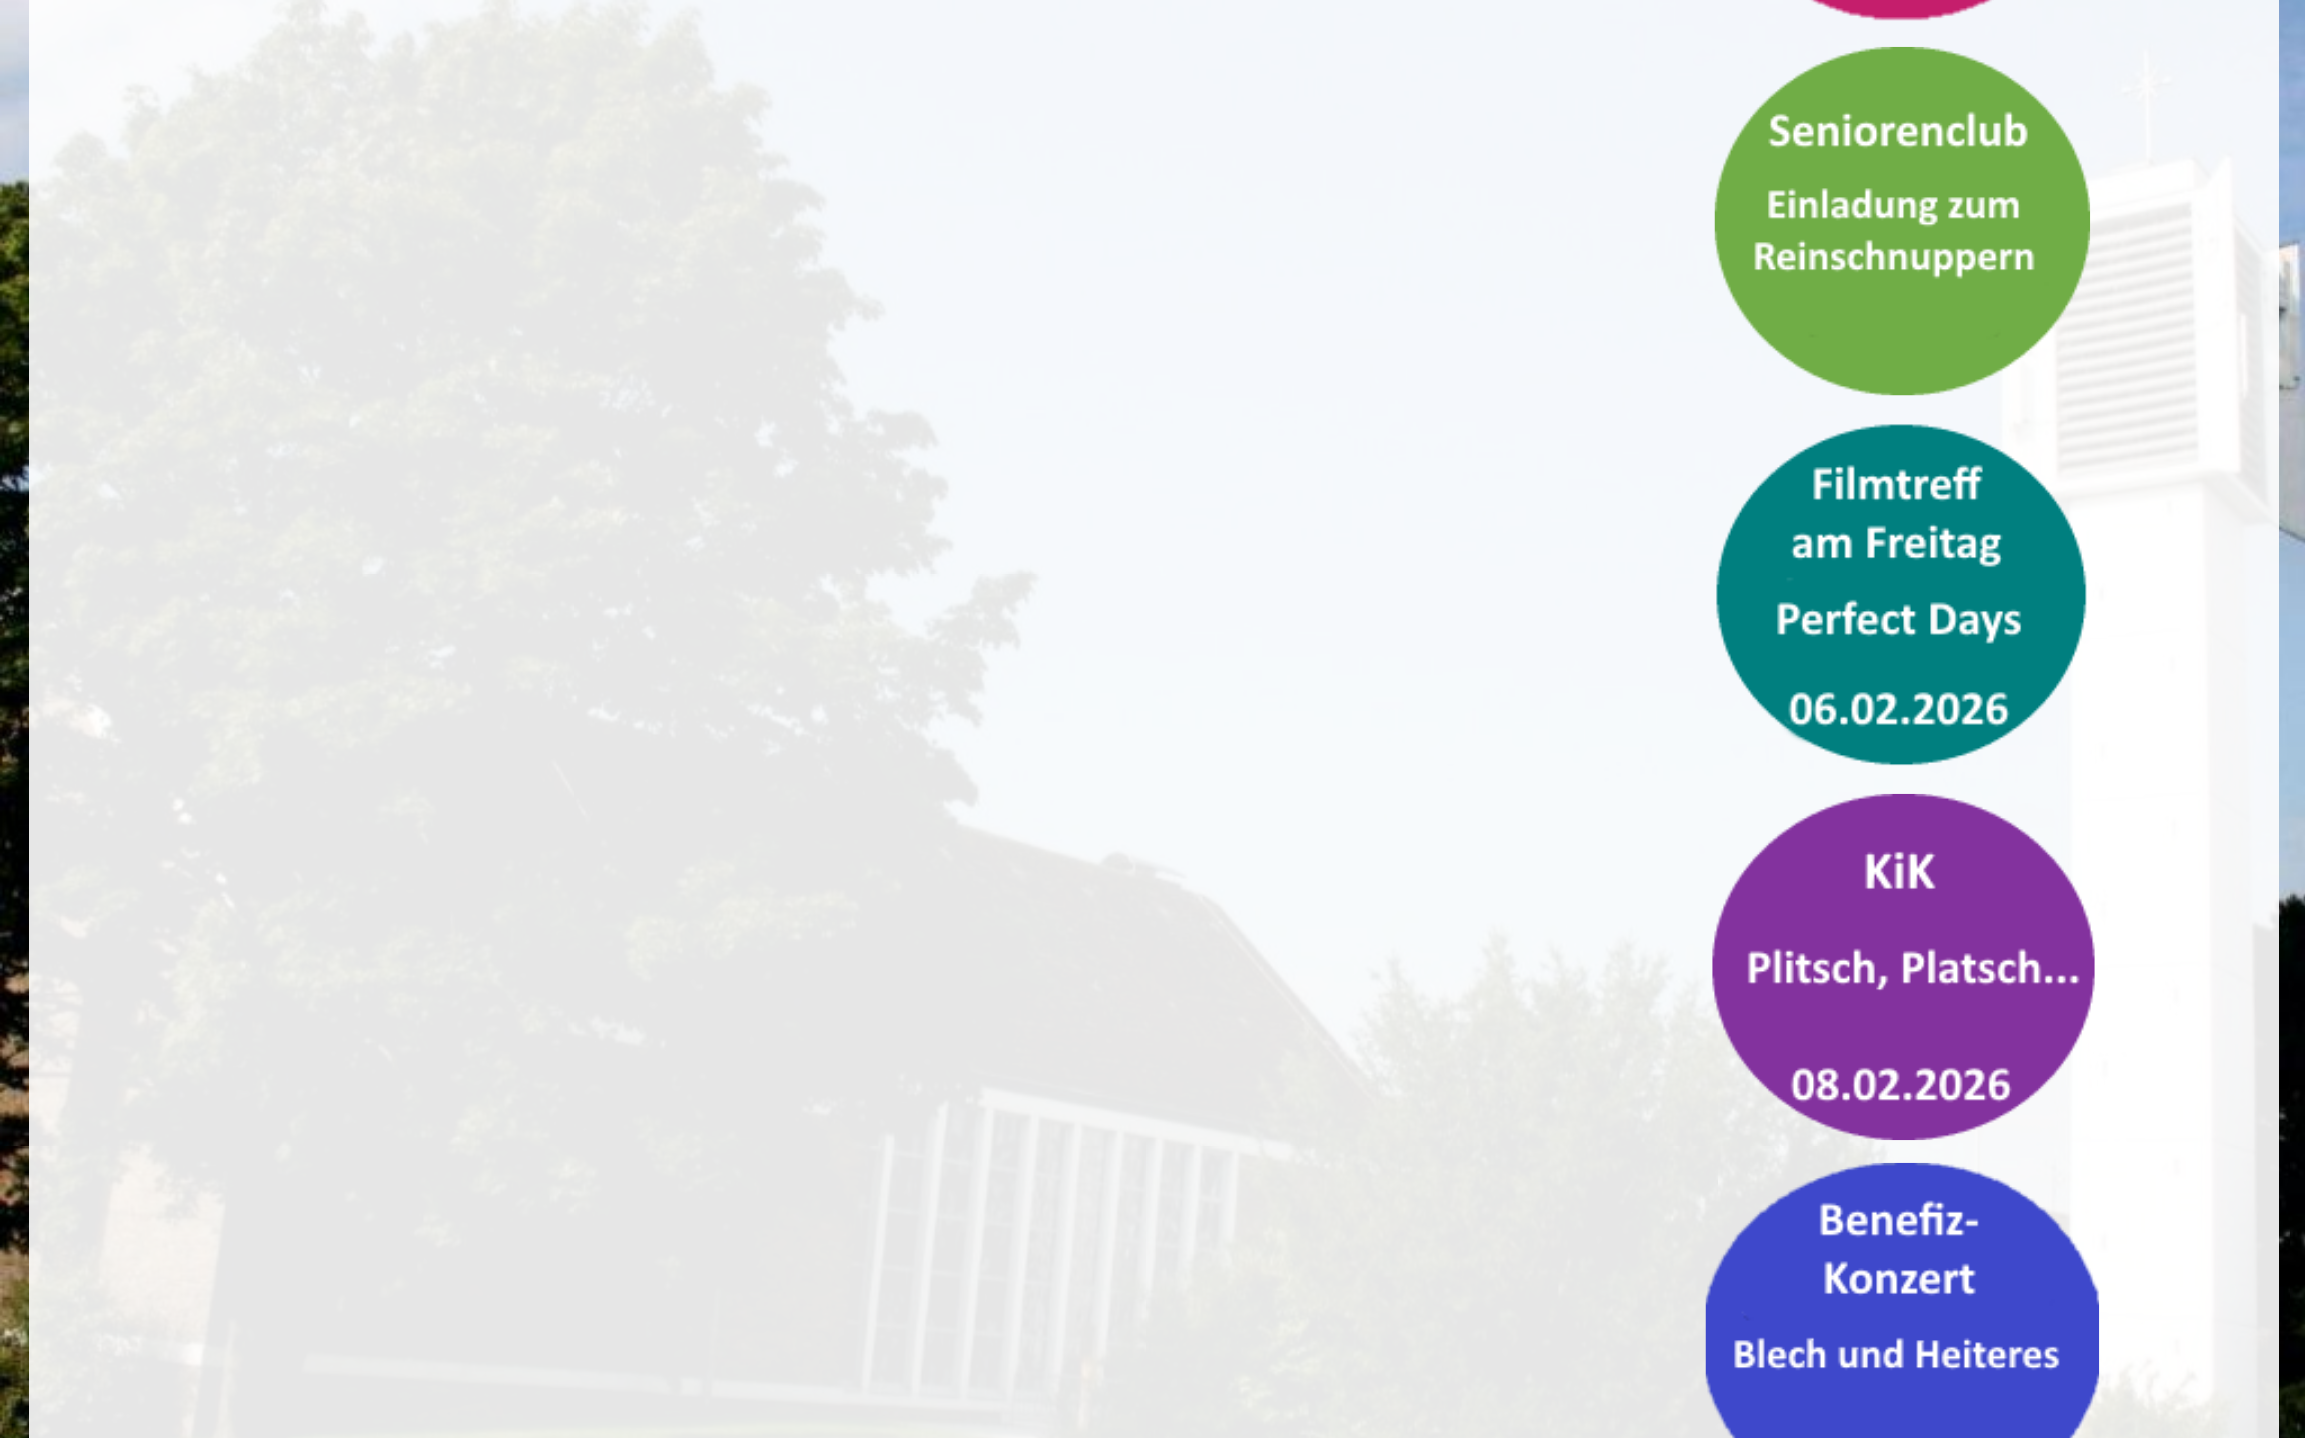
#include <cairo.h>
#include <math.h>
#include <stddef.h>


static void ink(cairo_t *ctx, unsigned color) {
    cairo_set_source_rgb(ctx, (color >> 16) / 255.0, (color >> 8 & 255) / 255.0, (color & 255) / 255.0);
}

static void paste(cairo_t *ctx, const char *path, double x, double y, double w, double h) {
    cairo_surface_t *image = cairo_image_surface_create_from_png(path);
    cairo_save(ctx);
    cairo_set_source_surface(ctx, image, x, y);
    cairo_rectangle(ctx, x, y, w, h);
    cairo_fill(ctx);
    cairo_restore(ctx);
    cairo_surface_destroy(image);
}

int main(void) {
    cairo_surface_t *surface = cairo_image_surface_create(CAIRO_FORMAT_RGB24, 2305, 1438);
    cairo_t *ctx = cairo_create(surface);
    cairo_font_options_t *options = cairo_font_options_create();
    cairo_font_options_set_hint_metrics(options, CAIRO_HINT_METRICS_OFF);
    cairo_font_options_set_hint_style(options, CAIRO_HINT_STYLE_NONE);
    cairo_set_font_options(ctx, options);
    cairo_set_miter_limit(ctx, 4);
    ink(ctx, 0xFFFFFF);
    cairo_paint(ctx);
    paste(ctx, "media/1.png", 0, 0, 2305, 1438);
    paste(ctx, "media/2.png", 1809, 0, 185, 21);
    paste(ctx, "media/3.png", 1714, 46, 377, 350);
    paste(ctx, "media/4.png", 1716, 424, 371, 342);
    paste(ctx, "media/5.png", 1712, 793, 383, 348);
    paste(ctx, "media/6.png", 1705, 1162, 395, 276);
    cairo_surface_write_to_png(surface, "image.png");
    cairo_font_options_destroy(options);
    cairo_destroy(ctx);
    cairo_surface_destroy(surface);
    return 0;
}
